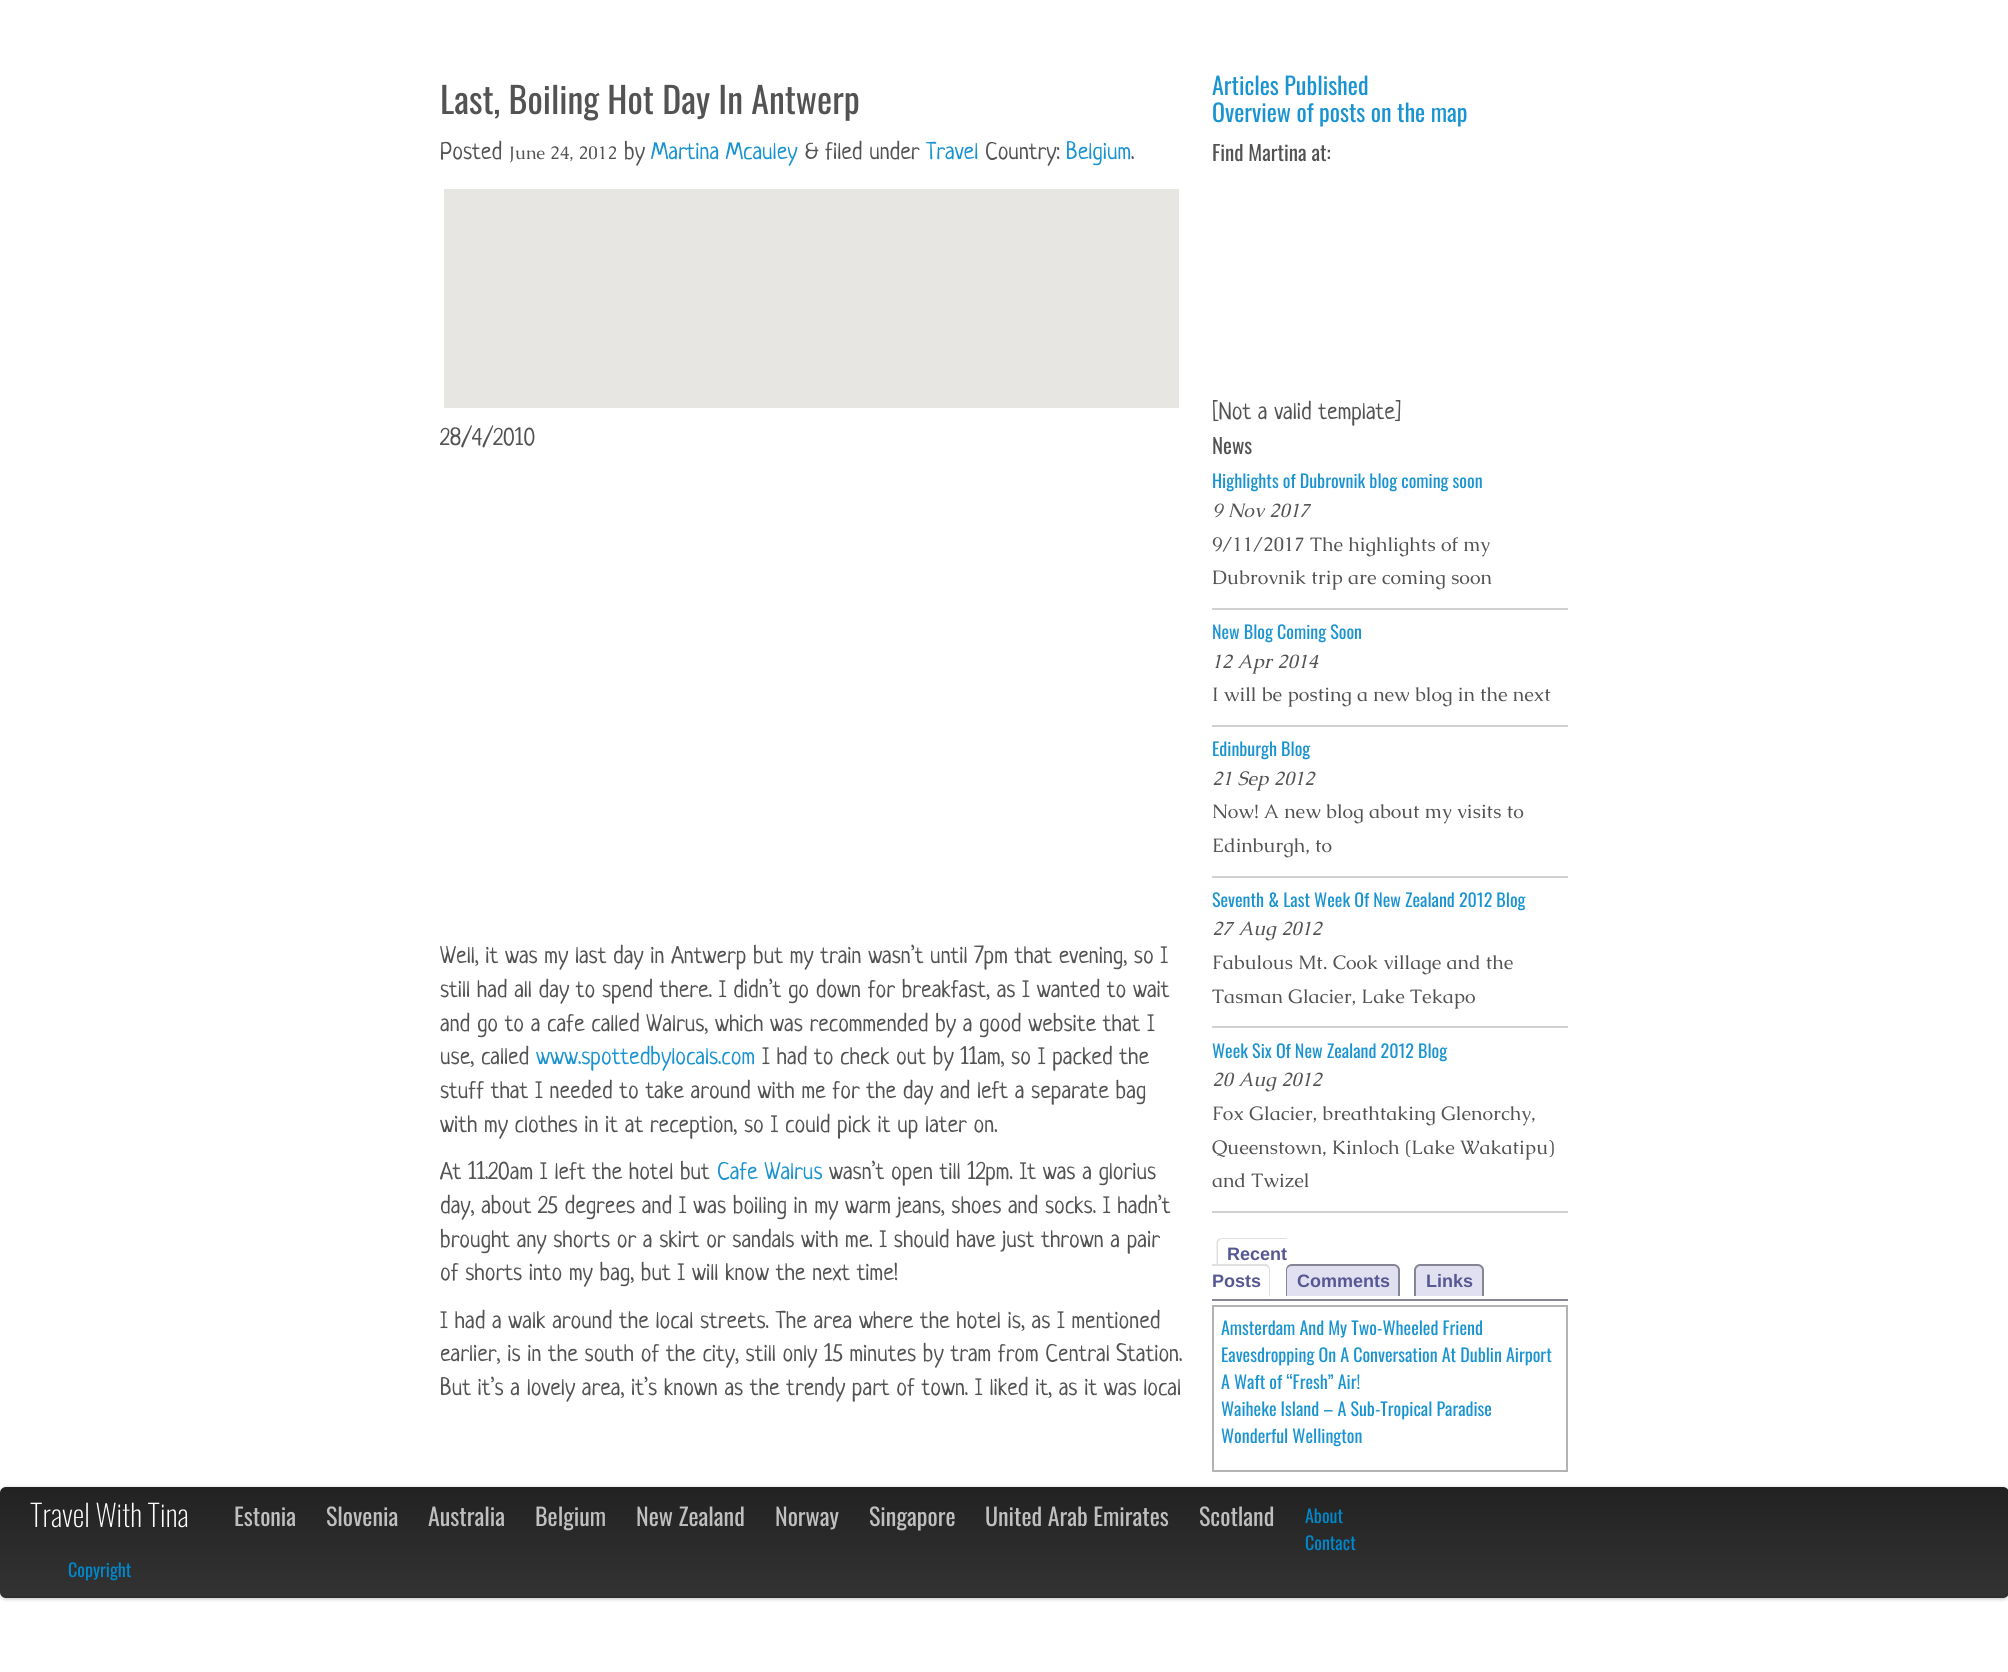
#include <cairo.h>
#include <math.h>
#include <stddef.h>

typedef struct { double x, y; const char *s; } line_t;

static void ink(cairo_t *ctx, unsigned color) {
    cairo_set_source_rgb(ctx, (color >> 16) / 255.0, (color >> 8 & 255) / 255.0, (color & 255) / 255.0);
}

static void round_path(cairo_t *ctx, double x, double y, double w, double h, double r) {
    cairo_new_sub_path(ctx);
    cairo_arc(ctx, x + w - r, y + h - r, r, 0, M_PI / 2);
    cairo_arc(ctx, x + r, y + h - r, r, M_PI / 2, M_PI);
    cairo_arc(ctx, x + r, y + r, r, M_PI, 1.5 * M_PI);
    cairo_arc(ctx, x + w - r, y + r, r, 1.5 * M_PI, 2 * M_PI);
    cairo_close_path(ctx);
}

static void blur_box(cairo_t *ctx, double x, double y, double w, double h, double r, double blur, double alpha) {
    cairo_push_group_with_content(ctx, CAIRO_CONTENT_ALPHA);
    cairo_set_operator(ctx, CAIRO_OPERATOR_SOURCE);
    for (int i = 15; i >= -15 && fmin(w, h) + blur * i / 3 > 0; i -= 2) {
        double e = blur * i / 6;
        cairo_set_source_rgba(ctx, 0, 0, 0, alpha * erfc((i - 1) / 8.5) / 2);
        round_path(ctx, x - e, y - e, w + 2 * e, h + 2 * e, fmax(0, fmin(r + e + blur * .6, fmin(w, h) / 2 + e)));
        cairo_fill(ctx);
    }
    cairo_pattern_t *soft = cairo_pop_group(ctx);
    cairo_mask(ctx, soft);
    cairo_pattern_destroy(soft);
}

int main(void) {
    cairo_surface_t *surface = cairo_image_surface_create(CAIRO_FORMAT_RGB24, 2008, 1672);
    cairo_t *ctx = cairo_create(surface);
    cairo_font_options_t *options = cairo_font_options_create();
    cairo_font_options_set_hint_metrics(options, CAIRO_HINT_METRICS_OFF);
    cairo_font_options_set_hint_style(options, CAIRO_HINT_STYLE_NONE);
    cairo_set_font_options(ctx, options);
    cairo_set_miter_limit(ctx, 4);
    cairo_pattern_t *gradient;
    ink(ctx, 0xFFFFFF);
    cairo_paint(ctx);
    cairo_select_font_face(ctx, "Oswald", CAIRO_FONT_SLANT_NORMAL, CAIRO_FONT_WEIGHT_NORMAL);
    cairo_set_font_size(ctx, 36);
    ink(ctx, 0x535353);
    cairo_move_to(ctx, 440, 114);
    cairo_show_text(ctx, "Last, Boiling Hot Day In Antwerp");
    cairo_select_font_face(ctx, "Neucha", CAIRO_FONT_SLANT_NORMAL, CAIRO_FONT_WEIGHT_NORMAL);
    cairo_set_font_size(ctx, 24);
    cairo_move_to(ctx, 440, 159);
    cairo_show_text(ctx, "Posted");
    cairo_select_font_face(ctx, "Caudex", CAIRO_FONT_SLANT_NORMAL, CAIRO_FONT_WEIGHT_NORMAL);
    cairo_set_font_size(ctx, 18);
    cairo_move_to(ctx, 509, 159);
    cairo_show_text(ctx, "June 24, 2012");
    cairo_select_font_face(ctx, "Neucha", CAIRO_FONT_SLANT_NORMAL, CAIRO_FONT_WEIGHT_NORMAL);
    cairo_set_font_size(ctx, 24);
    cairo_move_to(ctx, 624, 159);
    cairo_show_text(ctx, "by");
    ink(ctx, 0x1A94D1);
    cairo_move_to(ctx, 651, 159);
    cairo_show_text(ctx, "Martina Mcauley");
    ink(ctx, 0x535353);
    cairo_move_to(ctx, 805, 159);
    cairo_show_text(ctx, "& filed under");
    ink(ctx, 0x1A94D1);
    cairo_move_to(ctx, 926, 159);
    cairo_show_text(ctx, "Travel");
    ink(ctx, 0x535353);
    cairo_move_to(ctx, 985, 159);
    cairo_show_text(ctx, "Country:");
    ink(ctx, 0x1A94D1);
    cairo_move_to(ctx, 1066, 159);
    cairo_show_text(ctx, "Belgium");
    ink(ctx, 0x535353);
    cairo_move_to(ctx, 1131, 159);
    cairo_show_text(ctx, ".");
    ink(ctx, 0xE8E6E2);
    cairo_rectangle(ctx, 444, 189, 735, 219);
    cairo_fill(ctx);
    ink(ctx, 0x535353);
    {
        static const line_t items[] = {
            {440, 445, "28/4/2010"},
            {440, 963, "Well, it was my last day in Antwerp but my train wasn’t until 7pm that evening, so I"},
            {440, 997, "still had all day to spend there. I didn’t go down for breakfast, as I wanted to wait"},
            {440, 1031, "and go to a cafe called Walrus, which was recommended by a good website that I"},
            {440, 1064, "use, called"},
        };
        for (size_t i = 0; i < sizeof items / sizeof *items; i++) {
            cairo_move_to(ctx, items[i].x, items[i].y);
            cairo_show_text(ctx, items[i].s);
        }
    }
    ink(ctx, 0x1A94D1);
    cairo_move_to(ctx, 536, 1064);
    cairo_show_text(ctx, "www.spottedbylocals.com");
    ink(ctx, 0x535353);
    {
        static const line_t items[] = {
            {762, 1064, "I had to check out by 11am, so I packed the"},
            {440, 1098, "stuff that I needed to take around with me for the day and left a separate bag"},
            {440, 1132, "with my clothes in it at reception, so I could pick it up later on."},
            {440, 1179, "At 11.20am I left the hotel but"},
        };
        for (size_t i = 0; i < sizeof items / sizeof *items; i++) {
            cairo_move_to(ctx, items[i].x, items[i].y);
            cairo_show_text(ctx, items[i].s);
        }
    }
    ink(ctx, 0x1A94D1);
    cairo_move_to(ctx, 717, 1179);
    cairo_show_text(ctx, "Cafe Walrus");
    ink(ctx, 0x535353);
    {
        static const line_t items[] = {
            {829, 1179, "wasn’t open till 12pm. It was a glorius"},
            {440, 1213, "day, about 25 degrees and I was boiling in my warm jeans, shoes and socks. I hadn’t"},
            {440, 1247, "brought any shorts or a skirt or sandals with me. I should have just thrown a pair"},
            {440, 1280, "of shorts into my bag, but I will know the next time!"},
            {440, 1328, "I had a walk around the local streets. The area where the hotel is, as I mentioned"},
            {440, 1361, "earlier, is in the south of the city, still only 15 minutes by tram from Central Station."},
            {440, 1395, "But it’s a lovely area, it’s known as the trendy part of town. I liked it, as it was local"},
        };
        for (size_t i = 0; i < sizeof items / sizeof *items; i++) {
            cairo_move_to(ctx, items[i].x, items[i].y);
            cairo_show_text(ctx, items[i].s);
        }
    }
    cairo_select_font_face(ctx, "Oswald", CAIRO_FONT_SLANT_NORMAL, CAIRO_FONT_WEIGHT_NORMAL);
    ink(ctx, 0x1A94D1);
    cairo_move_to(ctx, 1212, 95);
    cairo_show_text(ctx, "Articles Published");
    cairo_move_to(ctx, 1212, 122);
    cairo_show_text(ctx, "Overview of posts on the map");
    cairo_set_font_size(ctx, 21);
    ink(ctx, 0x535353);
    cairo_move_to(ctx, 1212, 161);
    cairo_show_text(ctx, "Find Martina at:");
    cairo_select_font_face(ctx, "Neucha", CAIRO_FONT_SLANT_NORMAL, CAIRO_FONT_WEIGHT_NORMAL);
    cairo_set_font_size(ctx, 24);
    cairo_move_to(ctx, 1212, 419);
    cairo_show_text(ctx, "[Not a valid template]");
    cairo_select_font_face(ctx, "Oswald", CAIRO_FONT_SLANT_NORMAL, CAIRO_FONT_WEIGHT_NORMAL);
    cairo_set_font_size(ctx, 21);
    cairo_move_to(ctx, 1212, 454);
    cairo_show_text(ctx, "News");
    ink(ctx, 0xD1D1D1);
    cairo_rectangle(ctx, 1212, 608, 356, 2);
    cairo_fill(ctx);
    cairo_set_font_size(ctx, 18);
    ink(ctx, 0x1A94D1);
    cairo_move_to(ctx, 1212, 488);
    cairo_show_text(ctx, "Highlights of Dubrovnik blog coming soon");
    cairo_select_font_face(ctx, "Caudex", CAIRO_FONT_SLANT_ITALIC, CAIRO_FONT_WEIGHT_NORMAL);
    cairo_set_font_size(ctx, 19.5);
    ink(ctx, 0x535353);
    cairo_move_to(ctx, 1212, 517);
    cairo_show_text(ctx, "9 Nov 2017");
    cairo_select_font_face(ctx, "Caudex", CAIRO_FONT_SLANT_NORMAL, CAIRO_FONT_WEIGHT_NORMAL);
    cairo_move_to(ctx, 1212, 551);
    cairo_show_text(ctx, "9/11/2017 The highlights of my");
    cairo_move_to(ctx, 1212, 584);
    cairo_show_text(ctx, "Dubrovnik trip are coming soon");
    ink(ctx, 0xD1D1D1);
    cairo_rectangle(ctx, 1212, 725, 356, 2);
    cairo_fill(ctx);
    cairo_select_font_face(ctx, "Oswald", CAIRO_FONT_SLANT_NORMAL, CAIRO_FONT_WEIGHT_NORMAL);
    cairo_set_font_size(ctx, 18);
    ink(ctx, 0x1A94D1);
    cairo_move_to(ctx, 1212, 639);
    cairo_show_text(ctx, "New Blog Coming Soon");
    cairo_select_font_face(ctx, "Caudex", CAIRO_FONT_SLANT_ITALIC, CAIRO_FONT_WEIGHT_NORMAL);
    cairo_set_font_size(ctx, 19.5);
    ink(ctx, 0x535353);
    cairo_move_to(ctx, 1212, 668);
    cairo_show_text(ctx, "12 Apr 2014");
    cairo_select_font_face(ctx, "Caudex", CAIRO_FONT_SLANT_NORMAL, CAIRO_FONT_WEIGHT_NORMAL);
    cairo_move_to(ctx, 1212, 701);
    cairo_show_text(ctx, "I will be posting a new blog in the next");
    ink(ctx, 0xD1D1D1);
    cairo_rectangle(ctx, 1212, 876, 356, 2);
    cairo_fill(ctx);
    cairo_select_font_face(ctx, "Oswald", CAIRO_FONT_SLANT_NORMAL, CAIRO_FONT_WEIGHT_NORMAL);
    cairo_set_font_size(ctx, 18);
    ink(ctx, 0x1A94D1);
    cairo_move_to(ctx, 1212, 756);
    cairo_show_text(ctx, "Edinburgh Blog");
    cairo_select_font_face(ctx, "Caudex", CAIRO_FONT_SLANT_ITALIC, CAIRO_FONT_WEIGHT_NORMAL);
    cairo_set_font_size(ctx, 19.5);
    ink(ctx, 0x535353);
    cairo_move_to(ctx, 1212, 785);
    cairo_show_text(ctx, "21 Sep 2012");
    cairo_select_font_face(ctx, "Caudex", CAIRO_FONT_SLANT_NORMAL, CAIRO_FONT_WEIGHT_NORMAL);
    cairo_move_to(ctx, 1212, 818);
    cairo_show_text(ctx, "Now! A new blog about my visits to");
    cairo_move_to(ctx, 1212, 852);
    cairo_show_text(ctx, "Edinburgh, to");
    ink(ctx, 0xD1D1D1);
    cairo_rectangle(ctx, 1212, 1026, 356, 2);
    cairo_fill(ctx);
    cairo_select_font_face(ctx, "Oswald", CAIRO_FONT_SLANT_NORMAL, CAIRO_FONT_WEIGHT_NORMAL);
    cairo_set_font_size(ctx, 18);
    ink(ctx, 0x1A94D1);
    cairo_move_to(ctx, 1212, 907);
    cairo_show_text(ctx, "Seventh & Last Week Of New Zealand 2012 Blog");
    cairo_select_font_face(ctx, "Caudex", CAIRO_FONT_SLANT_ITALIC, CAIRO_FONT_WEIGHT_NORMAL);
    cairo_set_font_size(ctx, 19.5);
    ink(ctx, 0x535353);
    cairo_move_to(ctx, 1212, 935);
    cairo_show_text(ctx, "27 Aug 2012");
    cairo_select_font_face(ctx, "Caudex", CAIRO_FONT_SLANT_NORMAL, CAIRO_FONT_WEIGHT_NORMAL);
    cairo_move_to(ctx, 1212, 969);
    cairo_show_text(ctx, "Fabulous Mt. Cook village and the");
    cairo_move_to(ctx, 1212, 1003);
    cairo_show_text(ctx, "Tasman Glacier, Lake Tekapo");
    ink(ctx, 0xD1D1D1);
    cairo_rectangle(ctx, 1212, 1211, 356, 2);
    cairo_fill(ctx);
    cairo_select_font_face(ctx, "Oswald", CAIRO_FONT_SLANT_NORMAL, CAIRO_FONT_WEIGHT_NORMAL);
    cairo_set_font_size(ctx, 18);
    ink(ctx, 0x1A94D1);
    cairo_move_to(ctx, 1212, 1058);
    cairo_show_text(ctx, "Week Six Of New Zealand 2012 Blog");
    cairo_select_font_face(ctx, "Caudex", CAIRO_FONT_SLANT_ITALIC, CAIRO_FONT_WEIGHT_NORMAL);
    cairo_set_font_size(ctx, 19.5);
    ink(ctx, 0x535353);
    cairo_move_to(ctx, 1212, 1086);
    cairo_show_text(ctx, "20 Aug 2012");
    cairo_select_font_face(ctx, "Caudex", CAIRO_FONT_SLANT_NORMAL, CAIRO_FONT_WEIGHT_NORMAL);
    {
        static const line_t items[] = {
            {1212, 1120, "Fox Glacier, breathtaking Glenorchy,"},
            {1212, 1154, "Queenstown, Kinloch (Lake Wakatipu)"},
            {1212, 1187, "and Twizel"},
        };
        for (size_t i = 0; i < sizeof items / sizeof *items; i++) {
            cairo_move_to(ctx, items[i].x, items[i].y);
            cairo_show_text(ctx, items[i].s);
        }
    }
    ink(ctx, 0x858594);
    cairo_rectangle(ctx, 1212, 1299, 356, 2);
    cairo_fill(ctx);
    cairo_select_font_face(ctx, "Liberation Sans", CAIRO_FONT_SLANT_NORMAL, CAIRO_FONT_WEIGHT_BOLD);
    cairo_set_font_size(ctx, 18);
    ink(ctx, 0x575794);
    cairo_move_to(ctx, 1227, 1260);
    cairo_show_text(ctx, "Recent");
    ink(ctx, 0xE0E0E0);
    cairo_new_path(ctx);
    cairo_move_to(ctx, 1222, 1238);
    cairo_line_to(ctx, 1287, 1238);
    cairo_line_to(ctx, 1287, 1239);
    cairo_line_to(ctx, 1222, 1239);
    cairo_line_to(ctx, 1219, 1240);
    cairo_line_to(ctx, 1218, 1239);
    cairo_close_path(ctx);
    cairo_fill(ctx);
    cairo_new_path(ctx);
    cairo_move_to(ctx, 1219.5, 1240.5);
    cairo_curve_to(ctx, 1218.5, 1241, 1218, 1242.5, 1218, 1244);
    cairo_line_to(ctx, 1218, 1269);
    cairo_line_to(ctx, 1217, 1270);
    cairo_line_to(ctx, 1216.5, 1270);
    cairo_line_to(ctx, 1216.5, 1241.5);
    cairo_line_to(ctx, 1218, 1239);
    cairo_close_path(ctx);
    cairo_fill(ctx);
    ink(ctx, 0xFFFFFF);
    cairo_new_path(ctx);
    cairo_move_to(ctx, 1212, 1265);
    cairo_line_to(ctx, 1265, 1265);
    cairo_curve_to(ctx, 1268.5, 1265, 1271, 1267.5, 1271, 1271);
    cairo_line_to(ctx, 1271, 1298);
    cairo_line_to(ctx, 1212, 1298);
    cairo_close_path(ctx);
    cairo_fill(ctx);
    ink(ctx, 0xE0E0E0);
    cairo_new_path(ctx);
    cairo_move_to(ctx, 1212, 1266);
    cairo_line_to(ctx, 1264, 1266);
    cairo_curve_to(ctx, 1266, 1266, 1267, 1267, 1268, 1267);
    cairo_line_to(ctx, 1269, 1266);
    cairo_line_to(ctx, 1267, 1264);
    cairo_line_to(ctx, 1212, 1264);
    cairo_close_path(ctx);
    cairo_fill(ctx);
    ink(ctx, 0x575794);
    cairo_move_to(ctx, 1212, 1287);
    cairo_show_text(ctx, "Posts");
    ink(ctx, 0xE0E0E0);
    cairo_new_path(ctx);
    cairo_move_to(ctx, 1269, 1296);
    cairo_line_to(ctx, 1269, 1270);
    cairo_curve_to(ctx, 1269, 1269, 1268.5, 1268, 1267.5, 1267.5);
    cairo_line_to(ctx, 1269, 1266);
    cairo_curve_to(ctx, 1269.5, 1267.5, 1270, 1268.5, 1270, 1270);
    cairo_line_to(ctx, 1270, 1297);
    cairo_close_path(ctx);
    cairo_fill(ctx);
    ink(ctx, 0xFFFFFF);
    cairo_new_path(ctx);
    cairo_move_to(ctx, 1269, 1296);
    cairo_line_to(ctx, 1212, 1296);
    cairo_line_to(ctx, 1212, 1298);
    cairo_line_to(ctx, 1270, 1298);
    cairo_close_path(ctx);
    cairo_fill(ctx);
    ink(ctx, 0xE0E0F0);
    cairo_new_path(ctx);
    cairo_move_to(ctx, 1292, 1265);
    cairo_line_to(ctx, 1394, 1265);
    cairo_curve_to(ctx, 1397.5, 1265, 1400, 1267.5, 1400, 1271);
    cairo_line_to(ctx, 1400, 1296);
    cairo_line_to(ctx, 1286, 1296);
    cairo_line_to(ctx, 1286, 1271);
    cairo_curve_to(ctx, 1286, 1267.5, 1288.5, 1265, 1292, 1265);
    cairo_close_path(ctx);
    cairo_fill(ctx);
    ink(ctx, 0x858594);
    cairo_set_fill_rule(ctx, CAIRO_FILL_RULE_EVEN_ODD);
    cairo_new_path(ctx);
    cairo_move_to(ctx, 1292, 1264);
    cairo_line_to(ctx, 1394, 1264);
    cairo_curve_to(ctx, 1397, 1264, 1400, 1267, 1400, 1270);
    cairo_line_to(ctx, 1400, 1296);
    cairo_line_to(ctx, 1286, 1296);
    cairo_line_to(ctx, 1286, 1270);
    cairo_curve_to(ctx, 1286, 1267, 1288, 1264, 1292, 1264);
    cairo_close_path(ctx);
    cairo_move_to(ctx, 1292, 1266);
    cairo_line_to(ctx, 1394, 1266);
    cairo_curve_to(ctx, 1396, 1266, 1398, 1268, 1398, 1270);
    cairo_line_to(ctx, 1398, 1296);
    cairo_line_to(ctx, 1287, 1296);
    cairo_line_to(ctx, 1287, 1270);
    cairo_curve_to(ctx, 1287, 1268, 1289, 1266, 1292, 1266);
    cairo_close_path(ctx);
    cairo_fill(ctx);
    ink(ctx, 0x575794);
    cairo_move_to(ctx, 1297, 1287);
    cairo_show_text(ctx, "Comments");
    ink(ctx, 0xE0E0F0);
    cairo_new_path(ctx);
    cairo_move_to(ctx, 1421, 1265);
    cairo_line_to(ctx, 1478, 1265);
    cairo_curve_to(ctx, 1481.5, 1265, 1484, 1267.5, 1484, 1271);
    cairo_line_to(ctx, 1484, 1296);
    cairo_line_to(ctx, 1415, 1296);
    cairo_line_to(ctx, 1415, 1271);
    cairo_curve_to(ctx, 1415, 1267.5, 1417.5, 1265, 1421, 1265);
    cairo_close_path(ctx);
    cairo_fill(ctx);
    ink(ctx, 0x858594);
    cairo_new_path(ctx);
    cairo_move_to(ctx, 1420, 1264);
    cairo_line_to(ctx, 1478, 1264);
    cairo_curve_to(ctx, 1481, 1264, 1484, 1267, 1484, 1270);
    cairo_line_to(ctx, 1484, 1296);
    cairo_line_to(ctx, 1414, 1296);
    cairo_line_to(ctx, 1414, 1270);
    cairo_curve_to(ctx, 1414, 1267, 1417, 1264, 1420, 1264);
    cairo_close_path(ctx);
    cairo_move_to(ctx, 1420, 1266);
    cairo_line_to(ctx, 1478, 1266);
    cairo_curve_to(ctx, 1480, 1266, 1482, 1268, 1482, 1270);
    cairo_line_to(ctx, 1482, 1296);
    cairo_line_to(ctx, 1416, 1296);
    cairo_line_to(ctx, 1416, 1270);
    cairo_curve_to(ctx, 1416, 1268, 1418, 1266, 1420, 1266);
    cairo_close_path(ctx);
    cairo_fill(ctx);
    ink(ctx, 0x575794);
    cairo_move_to(ctx, 1426, 1287);
    cairo_show_text(ctx, "Links");
    cairo_rectangle(ctx, 1213, 1306, 354, 165);
    ink(ctx, 0xB3B3B3);
    cairo_stroke(ctx);
    cairo_select_font_face(ctx, "Oswald", CAIRO_FONT_SLANT_NORMAL, CAIRO_FONT_WEIGHT_NORMAL);
    ink(ctx, 0x1A94D1);
    {
        static const line_t items[] = {
            {1221, 1335, "Amsterdam And My Two-Wheeled Friend"},
            {1221, 1362, "Eavesdropping On A Conversation At Dublin Airport"},
            {1221, 1389, "A Waft of “Fresh” Air!"},
            {1221, 1416, "Waiheke Island – A Sub-Tropical Paradise"},
            {1221, 1443, "Wonderful Wellington"},
        };
        for (size_t i = 0; i < sizeof items / sizeof *items; i++) {
            cairo_move_to(ctx, items[i].x, items[i].y);
            cairo_show_text(ctx, items[i].s);
        }
    }
    ink(ctx, 0x000000);
    blur_box(ctx, 0, 1488, 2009, 111, 6, 2, 0.25);
    gradient = cairo_pattern_create_linear(0, 1487, 0, 1598);
    cairo_pattern_add_color_stop_rgba(gradient, 0, 0.133, 0.133, 0.133, 1);
    cairo_pattern_add_color_stop_rgba(gradient, 1, 0.2, 0.2, 0.2, 1);
    cairo_set_source(ctx, gradient);
    cairo_pattern_destroy(gradient);
    round_path(ctx, 0, 1487, 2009, 111, 6);
    cairo_fill(ctx);
    cairo_set_source_rgba(ctx, 0, 0, 0, 0.1);
    cairo_set_fill_rule(ctx, CAIRO_FILL_RULE_WINDING);
    cairo_new_path(ctx);
    cairo_move_to(ctx, 0, 1590);
    cairo_line_to(ctx, 0, 1592);
    cairo_curve_to(ctx, 0, 1595, 3, 1598, 6, 1598);
    cairo_line_to(ctx, 2003, 1598);
    cairo_curve_to(ctx, 2006, 1598, 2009, 1595, 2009, 1592);
    cairo_line_to(ctx, 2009, 1493);
    cairo_curve_to(ctx, 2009, 1492, 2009, 1490, 2008, 1489);
    cairo_line_to(ctx, 2008, 1590);
    cairo_curve_to(ctx, 2008, 1593, 2006, 1596, 2002, 1596);
    cairo_line_to(ctx, 6, 1596);
    cairo_curve_to(ctx, 3, 1596, 0, 1593, 0, 1590);
    cairo_close_path(ctx);
    cairo_fill(ctx);
    cairo_select_font_face(ctx, "Oswald ExtraLight", CAIRO_FONT_SLANT_NORMAL, CAIRO_FONT_WEIGHT_NORMAL);
    cairo_set_font_size(ctx, 30);
    ink(ctx, 0xFFFFFF);
    cairo_move_to(ctx, 30, 1527);
    cairo_show_text(ctx, "Travel With Tina");
    cairo_select_font_face(ctx, "Oswald", CAIRO_FONT_SLANT_NORMAL, CAIRO_FONT_WEIGHT_NORMAL);
    cairo_set_font_size(ctx, 24);
    ink(ctx, 0xBFBFBF);
    {
        static const line_t items[] = {
            {234, 1526, "Estonia"},
            {326, 1526, "Slovenia"},
            {428, 1526, "Australia"},
            {535, 1526, "Belgium"},
            {636, 1526, "New Zealand"},
            {775, 1526, "Norway"},
            {869, 1526, "Singapore"},
            {985, 1526, "United Arab Emirates"},
            {1199, 1526, "Scotland"},
        };
        for (size_t i = 0; i < sizeof items / sizeof *items; i++) {
            cairo_move_to(ctx, items[i].x, items[i].y);
            cairo_show_text(ctx, items[i].s);
        }
    }
    cairo_set_font_size(ctx, 18);
    ink(ctx, 0x0088CC);
    {
        static const line_t items[] = {
            {1305, 1523, "About"},
            {1305, 1550, "Contact"},
            {68, 1577, "Copyright"},
        };
        for (size_t i = 0; i < sizeof items / sizeof *items; i++) {
            cairo_move_to(ctx, items[i].x, items[i].y);
            cairo_show_text(ctx, items[i].s);
        }
    }
    cairo_surface_write_to_png(surface, "image.png");
    cairo_font_options_destroy(options);
    cairo_destroy(ctx);
    cairo_surface_destroy(surface);
    return 0;
}
